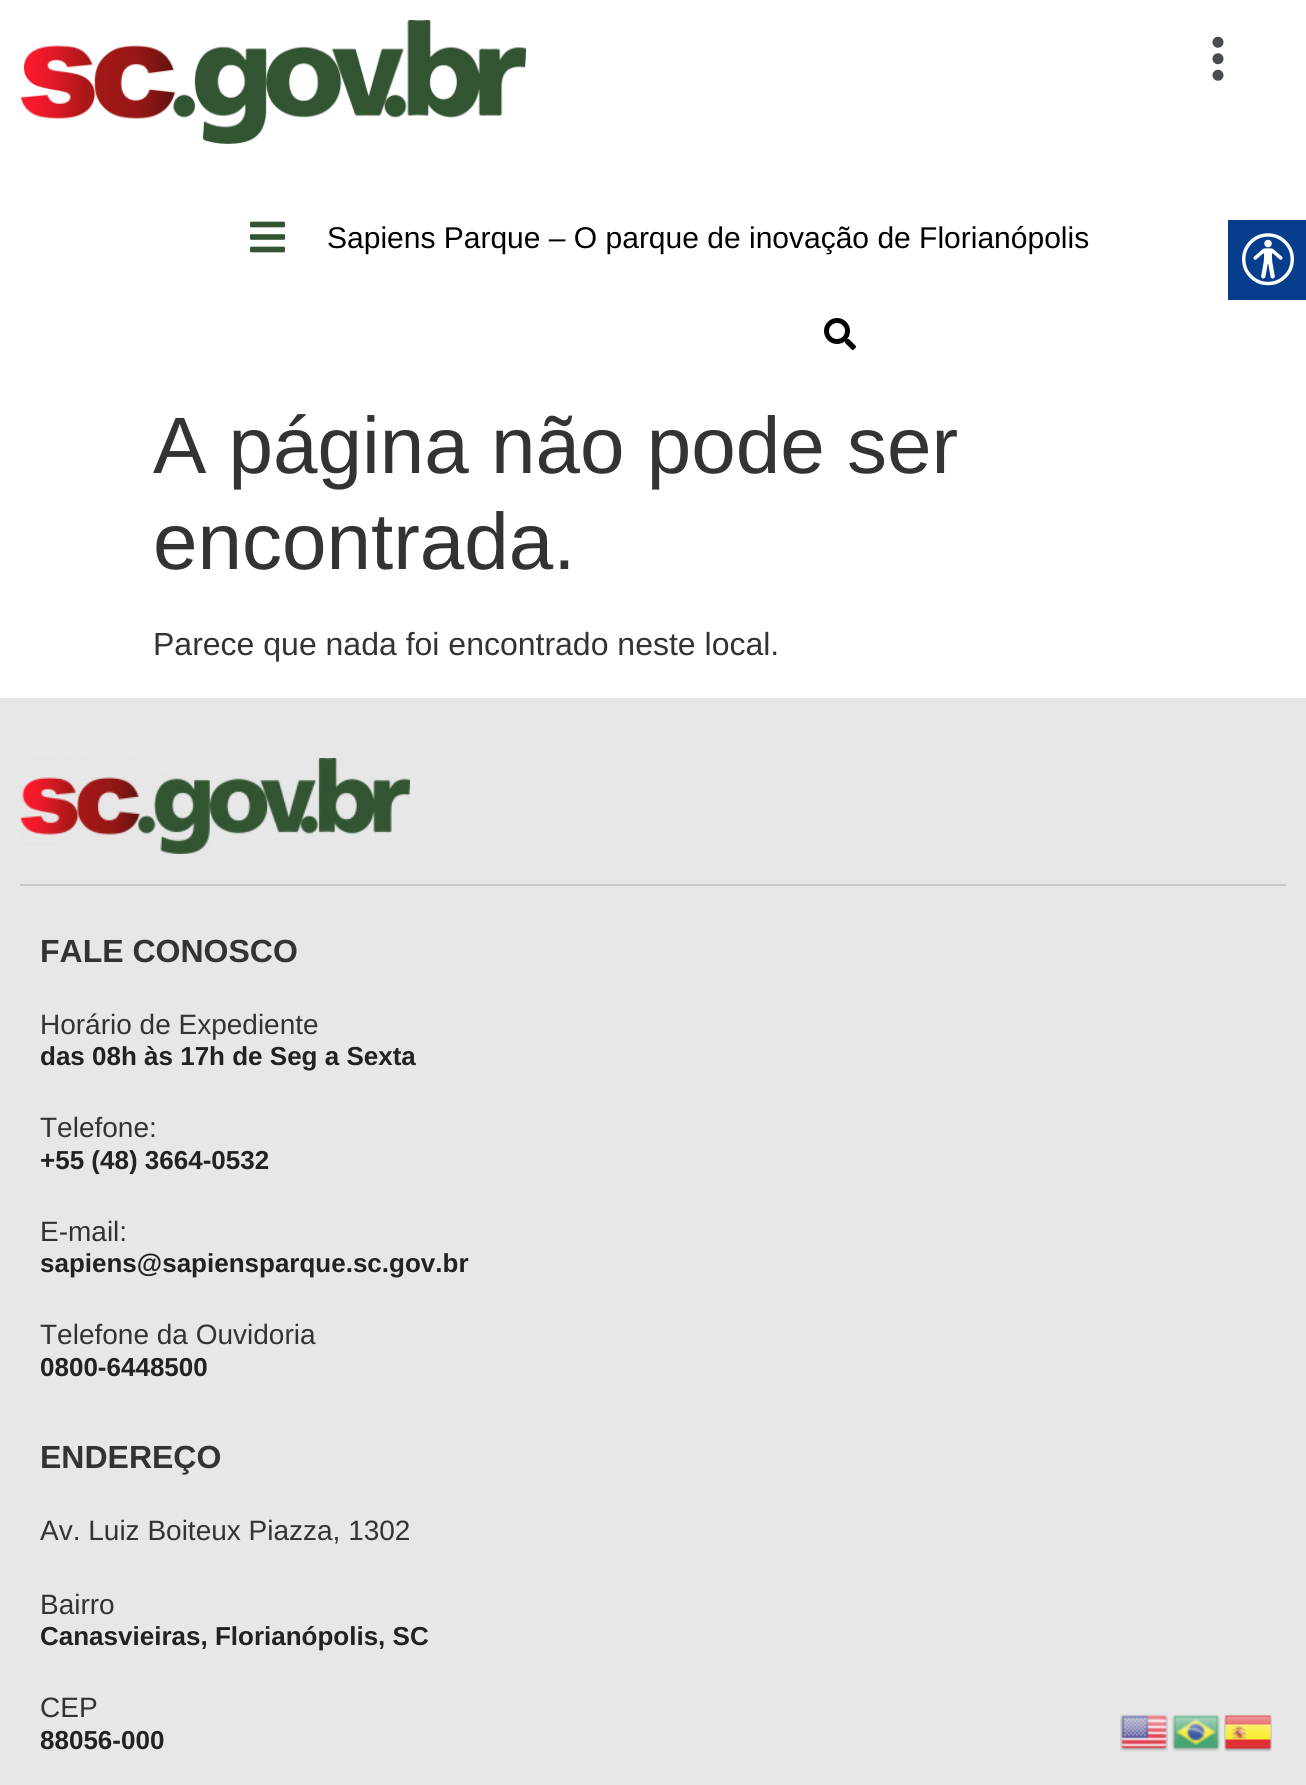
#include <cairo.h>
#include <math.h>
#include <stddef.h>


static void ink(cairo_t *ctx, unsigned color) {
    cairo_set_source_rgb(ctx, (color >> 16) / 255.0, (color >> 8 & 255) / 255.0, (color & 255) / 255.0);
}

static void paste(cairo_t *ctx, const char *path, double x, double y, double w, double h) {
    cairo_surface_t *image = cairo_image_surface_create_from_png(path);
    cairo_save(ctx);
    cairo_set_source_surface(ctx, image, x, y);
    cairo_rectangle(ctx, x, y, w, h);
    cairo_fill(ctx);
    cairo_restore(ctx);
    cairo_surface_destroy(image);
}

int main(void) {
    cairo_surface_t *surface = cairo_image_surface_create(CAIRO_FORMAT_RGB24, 1306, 1785);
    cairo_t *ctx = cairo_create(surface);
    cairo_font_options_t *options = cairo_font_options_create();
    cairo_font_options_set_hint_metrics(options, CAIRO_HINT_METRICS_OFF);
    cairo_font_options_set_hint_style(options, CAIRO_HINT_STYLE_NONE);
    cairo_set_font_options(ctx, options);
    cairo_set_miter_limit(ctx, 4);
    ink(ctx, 0xFFFFFF);
    cairo_paint(ctx);
    paste(ctx, "media/1.png", 21, 20, 505, 124);
    paste(ctx, "media/2.png", 1212, 36, 12, 45);
    paste(ctx, "media/3.png", 250, 221, 35, 32);
    cairo_select_font_face(ctx, "Liberation Sans", CAIRO_FONT_SLANT_NORMAL, CAIRO_FONT_WEIGHT_NORMAL);
    cairo_set_font_size(ctx, 30);
    ink(ctx, 0x000000);
    cairo_move_to(ctx, 327, 248);
    cairo_show_text(ctx, "Sapiens Parque – O parque de inovação de Florianópolis");
    paste(ctx, "media/4.png", 824, 318, 32, 32);
    ink(ctx, 0x063D8D);
    cairo_rectangle(ctx, 1228, 220, 78, 80);
    cairo_fill(ctx);
    paste(ctx, "media/5.png", 1242, 233, 52, 53);
    cairo_set_font_size(ctx, 80);
    ink(ctx, 0x333333);
    cairo_move_to(ctx, 153, 473);
    cairo_show_text(ctx, "A página não pode ser");
    cairo_move_to(ctx, 153, 569);
    cairo_show_text(ctx, "encontrada.");
    cairo_set_font_size(ctx, 32);
    cairo_move_to(ctx, 153, 655);
    cairo_show_text(ctx, "Parece que nada foi encontrado neste local.");
    ink(ctx, 0xE7E7E7);
    cairo_rectangle(ctx, 0, 698, 1306, 1087);
    cairo_fill(ctx);
    paste(ctx, "media/6.png", 20, 758, 390, 96);
    ink(ctx, 0xC9C9C9);
    cairo_rectangle(ctx, 20, 884, 1266, 2);
    cairo_fill(ctx);
    cairo_select_font_face(ctx, "Liberation Sans", CAIRO_FONT_SLANT_NORMAL, CAIRO_FONT_WEIGHT_BOLD);
    ink(ctx, 0x333333);
    cairo_move_to(ctx, 40, 962);
    cairo_show_text(ctx, "FALE CONOSCO");
    cairo_select_font_face(ctx, "Liberation Sans", CAIRO_FONT_SLANT_NORMAL, CAIRO_FONT_WEIGHT_NORMAL);
    cairo_set_font_size(ctx, 28);
    cairo_move_to(ctx, 40, 1034);
    cairo_show_text(ctx, "Horário de Expediente");
    cairo_select_font_face(ctx, "Liberation Sans", CAIRO_FONT_SLANT_NORMAL, CAIRO_FONT_WEIGHT_BOLD);
    cairo_set_font_size(ctx, 26);
    ink(ctx, 0x222222);
    cairo_move_to(ctx, 40, 1065);
    cairo_show_text(ctx, "das 08h às 17h de Seg a Sexta");
    cairo_select_font_face(ctx, "Liberation Sans", CAIRO_FONT_SLANT_NORMAL, CAIRO_FONT_WEIGHT_NORMAL);
    cairo_set_font_size(ctx, 28);
    ink(ctx, 0x333333);
    cairo_move_to(ctx, 40, 1137);
    cairo_show_text(ctx, "Telefone:");
    cairo_save(ctx);
    cairo_rectangle(ctx, 40, 1112, 1226, 62);
    cairo_clip(ctx);
    cairo_select_font_face(ctx, "Liberation Sans", CAIRO_FONT_SLANT_NORMAL, CAIRO_FONT_WEIGHT_BOLD);
    cairo_set_font_size(ctx, 26);
    ink(ctx, 0x222222);
    cairo_move_to(ctx, 40, 1169);
    cairo_show_text(ctx, "+55 (48) 3664-0532");
    cairo_restore(ctx);
    cairo_move_to(ctx, 40, 1241);
    cairo_show_text(ctx, "E-mail:");
    cairo_select_font_face(ctx, "Liberation Sans", CAIRO_FONT_SLANT_NORMAL, CAIRO_FONT_WEIGHT_BOLD);
    cairo_set_font_size(ctx, 26);
    ink(ctx, 0x222222);
    cairo_move_to(ctx, 40, 1272);
    cairo_show_text(ctx, "sapiens@sapiensparque.sc.gov.br");
    cairo_select_font_face(ctx, "Liberation Sans", CAIRO_FONT_SLANT_NORMAL, CAIRO_FONT_WEIGHT_NORMAL);
    cairo_set_font_size(ctx, 28);
    ink(ctx, 0x333333);
    cairo_move_to(ctx, 40, 1344);
    cairo_show_text(ctx, "Telefone da Ouvidoria");
    cairo_select_font_face(ctx, "Liberation Sans", CAIRO_FONT_SLANT_NORMAL, CAIRO_FONT_WEIGHT_BOLD);
    cairo_set_font_size(ctx, 26);
    ink(ctx, 0x222222);
    cairo_move_to(ctx, 40, 1376);
    cairo_show_text(ctx, "0800-6448500");
    cairo_set_font_size(ctx, 32);
    ink(ctx, 0x333333);
    cairo_move_to(ctx, 40, 1468);
    cairo_show_text(ctx, "ENDEREÇO");
    cairo_select_font_face(ctx, "Liberation Sans", CAIRO_FONT_SLANT_NORMAL, CAIRO_FONT_WEIGHT_NORMAL);
    cairo_set_font_size(ctx, 28);
    cairo_move_to(ctx, 40, 1540);
    cairo_show_text(ctx, "Av. Luiz Boiteux Piazza, 1302");
    cairo_move_to(ctx, 40, 1614);
    cairo_show_text(ctx, "Bairro");
    cairo_select_font_face(ctx, "Liberation Sans", CAIRO_FONT_SLANT_NORMAL, CAIRO_FONT_WEIGHT_BOLD);
    cairo_set_font_size(ctx, 26);
    ink(ctx, 0x222222);
    cairo_move_to(ctx, 40, 1645);
    cairo_show_text(ctx, "Canasvieiras, Florianópolis, SC");
    cairo_select_font_face(ctx, "Liberation Sans", CAIRO_FONT_SLANT_NORMAL, CAIRO_FONT_WEIGHT_NORMAL);
    cairo_set_font_size(ctx, 28);
    ink(ctx, 0x333333);
    cairo_move_to(ctx, 40, 1717);
    cairo_show_text(ctx, "CEP");
    cairo_select_font_face(ctx, "Liberation Sans", CAIRO_FONT_SLANT_NORMAL, CAIRO_FONT_WEIGHT_BOLD);
    cairo_set_font_size(ctx, 26);
    ink(ctx, 0x222222);
    cairo_move_to(ctx, 40, 1749);
    cairo_show_text(ctx, "88056-000");
    paste(ctx, "media/7.png", 1120, 1714, 48, 38);
    paste(ctx, "media/8.png", 1172, 1714, 48, 38);
    paste(ctx, "media/9.png", 1224, 1714, 48, 38);
    cairo_surface_write_to_png(surface, "image.png");
    cairo_font_options_destroy(options);
    cairo_destroy(ctx);
    cairo_surface_destroy(surface);
    return 0;
}
